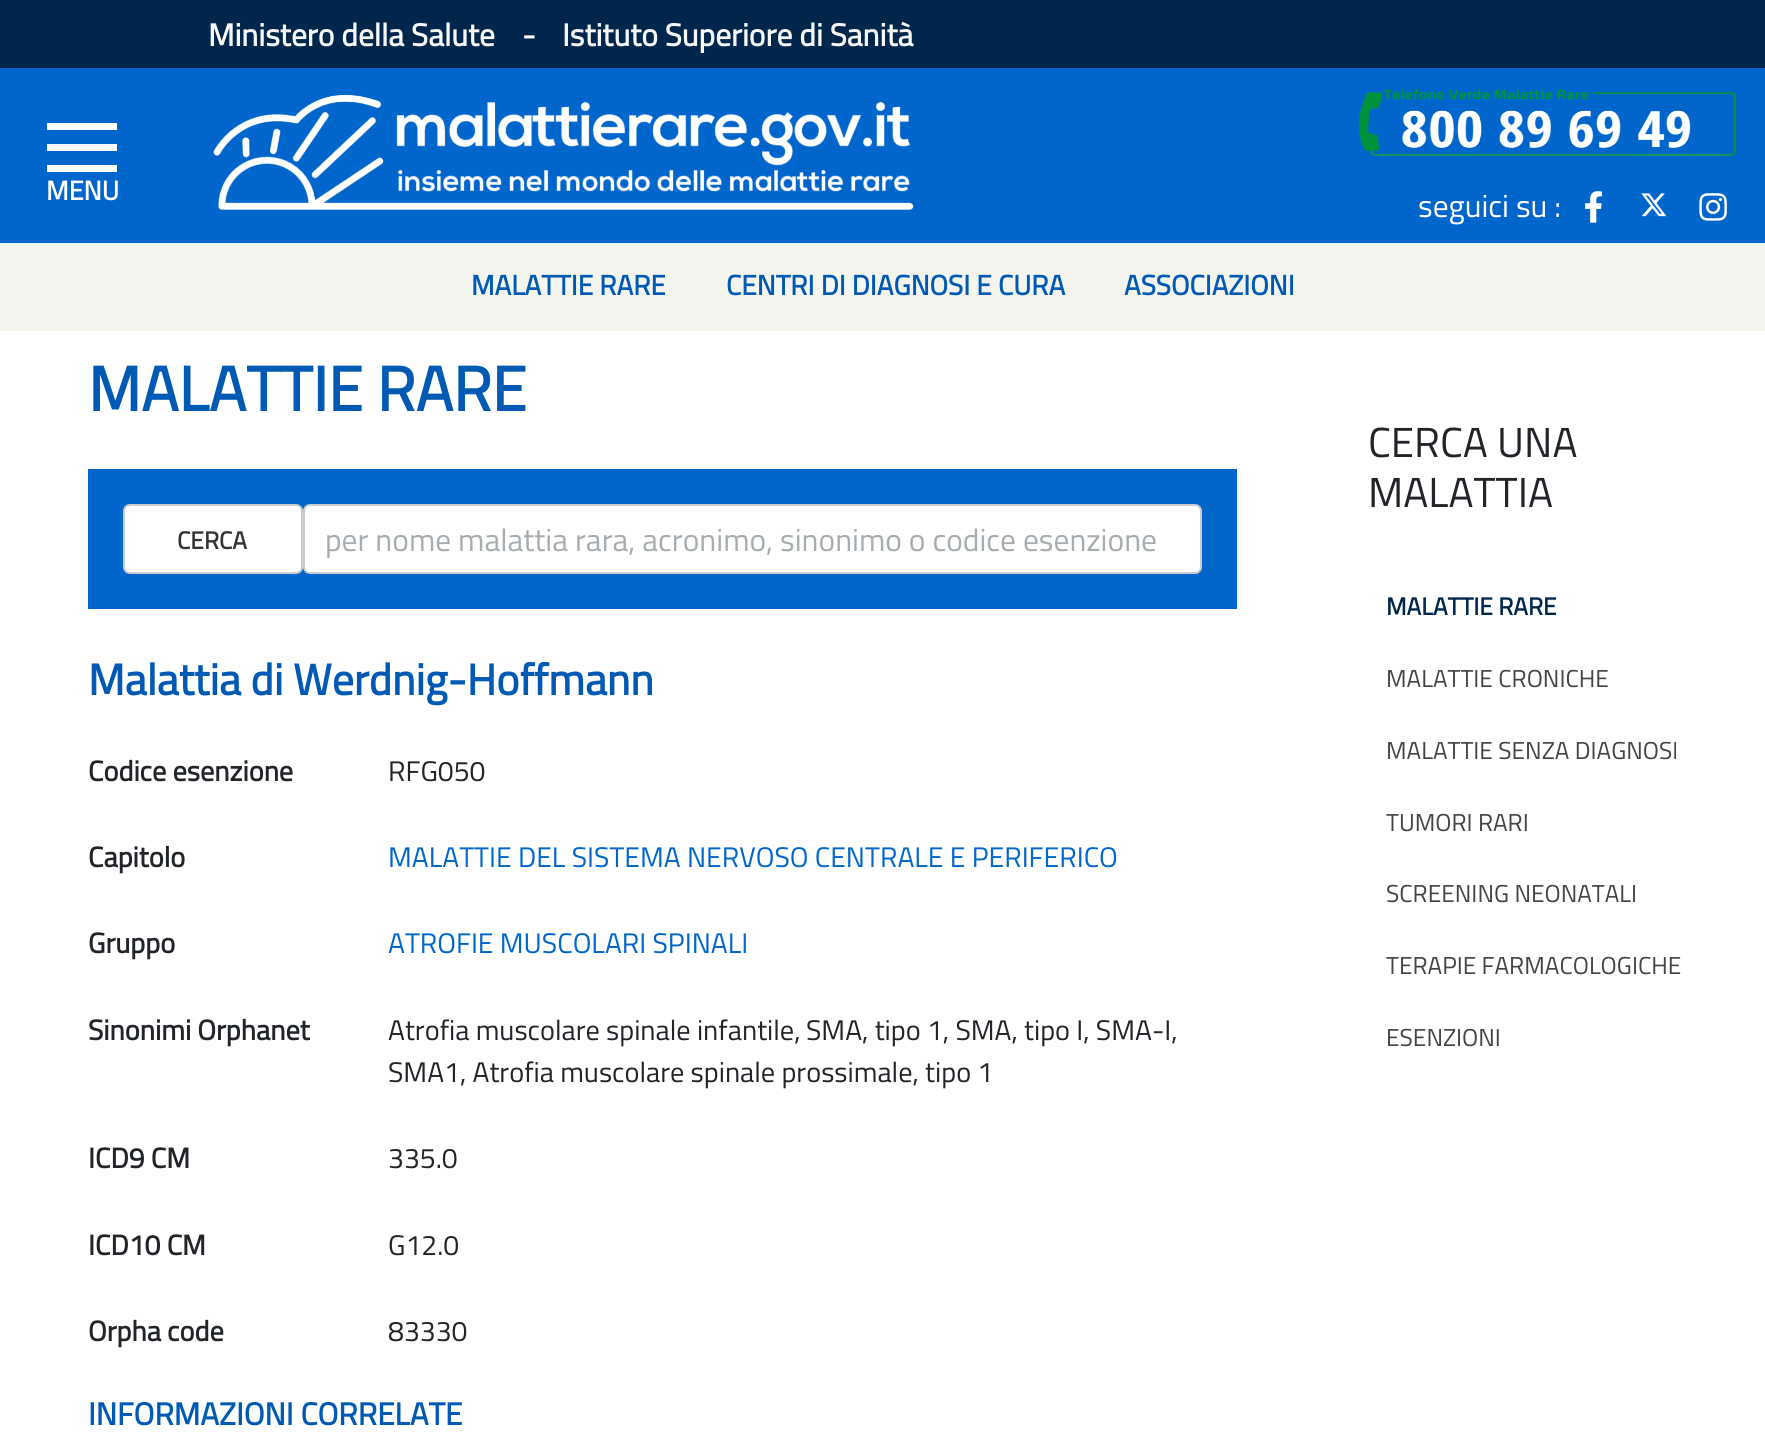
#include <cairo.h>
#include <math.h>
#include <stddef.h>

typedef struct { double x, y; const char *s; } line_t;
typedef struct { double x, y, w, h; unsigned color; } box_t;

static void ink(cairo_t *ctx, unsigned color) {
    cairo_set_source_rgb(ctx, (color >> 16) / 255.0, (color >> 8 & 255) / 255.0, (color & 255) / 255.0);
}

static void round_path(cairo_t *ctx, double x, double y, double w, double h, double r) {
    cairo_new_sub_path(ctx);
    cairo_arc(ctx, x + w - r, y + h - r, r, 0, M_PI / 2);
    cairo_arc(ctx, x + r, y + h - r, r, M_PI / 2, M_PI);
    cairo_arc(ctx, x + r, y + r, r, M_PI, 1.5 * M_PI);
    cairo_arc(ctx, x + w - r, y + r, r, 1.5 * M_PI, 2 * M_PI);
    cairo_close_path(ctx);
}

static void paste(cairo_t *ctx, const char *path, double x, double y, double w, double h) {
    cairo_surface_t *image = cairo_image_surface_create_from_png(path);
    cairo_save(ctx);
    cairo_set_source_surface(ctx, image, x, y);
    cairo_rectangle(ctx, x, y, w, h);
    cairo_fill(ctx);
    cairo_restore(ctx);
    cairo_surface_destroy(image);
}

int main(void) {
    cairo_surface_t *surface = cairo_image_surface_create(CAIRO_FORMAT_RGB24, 1765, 1447);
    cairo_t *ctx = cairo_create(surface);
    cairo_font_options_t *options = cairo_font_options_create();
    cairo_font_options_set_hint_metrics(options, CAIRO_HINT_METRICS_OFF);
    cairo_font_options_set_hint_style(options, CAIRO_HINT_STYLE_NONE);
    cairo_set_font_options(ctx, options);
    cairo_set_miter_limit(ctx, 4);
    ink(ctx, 0xFFFFFF);
    cairo_paint(ctx);
    ink(ctx, 0x00264C);
    cairo_rectangle(ctx, 0, 0, 1765, 68);
    cairo_fill(ctx);
    cairo_select_font_face(ctx, "Titillium Web", CAIRO_FONT_SLANT_NORMAL, CAIRO_FONT_WEIGHT_BOLD);
    cairo_set_font_size(ctx, 31.5);
    ink(ctx, 0xF7F7F7);
    cairo_move_to(ctx, 208, 46);
    cairo_show_text(ctx, "Ministero della Salute");
    ink(ctx, 0xFFFFFF);
    cairo_move_to(ctx, 522, 46);
    cairo_show_text(ctx, "-");
    ink(ctx, 0xF7F7F7);
    cairo_move_to(ctx, 562, 46);
    cairo_show_text(ctx, "Istituto Superiore di Sanità");
    {
        static const box_t items[] = {
            {0, 68, 1765, 175, 0x0066CC},
            {47, 123, 70, 7, 0xFFFFFF},
            {47, 144, 70, 7, 0xFFFFFF},
            {47, 165, 70, 7, 0xFFFFFF},
        };
        for (size_t i = 0; i < sizeof items / sizeof *items; i++) {
            ink(ctx, items[i].color);
            cairo_rectangle(ctx, items[i].x, items[i].y, items[i].w, items[i].h);
            cairo_fill(ctx);
        }
    }
    cairo_set_font_size(ctx, 27);
    cairo_move_to(ctx, 46, 200);
    cairo_show_text(ctx, "MENU");
    paste(ctx, "media/1.png", 213, 95, 701, 115);
    paste(ctx, "media/2.png", 1358, 89, 378, 67);
    cairo_select_font_face(ctx, "Titillium Web", CAIRO_FONT_SLANT_NORMAL, CAIRO_FONT_WEIGHT_NORMAL);
    cairo_set_font_size(ctx, 31.5);
    cairo_move_to(ctx, 1418, 217);
    cairo_show_text(ctx, "seguici su :");
    paste(ctx, "media/3.png", 1585, 191, 18, 32);
    paste(ctx, "media/4.png", 1641, 193, 26, 24);
    paste(ctx, "media/5.png", 1699, 193, 28, 28);
    ink(ctx, 0xF5F5F0);
    cairo_rectangle(ctx, 0, 243, 1765, 88);
    cairo_fill(ctx);
    cairo_select_font_face(ctx, "Titillium Web", CAIRO_FONT_SLANT_NORMAL, CAIRO_FONT_WEIGHT_BOLD);
    cairo_set_font_size(ctx, 28);
    ink(ctx, 0x0059B3);
    {
        static const line_t items[] = {
            {471, 295, "MALATTIE RARE"},
            {726, 295, "CENTRI DI DIAGNOSI E CURA"},
            {1124, 295, "ASSOCIAZIONI"},
        };
        for (size_t i = 0; i < sizeof items / sizeof *items; i++) {
            cairo_move_to(ctx, items[i].x, items[i].y);
            cairo_show_text(ctx, items[i].s);
        }
    }
    cairo_set_font_size(ctx, 63);
    cairo_move_to(ctx, 88, 411);
    cairo_show_text(ctx, "MALATTIE RARE");
    ink(ctx, 0x0066CC);
    cairo_rectangle(ctx, 88, 469, 1149, 140);
    cairo_fill(ctx);
    ink(ctx, 0xFFFFFF);
    round_path(ctx, 124, 505, 178, 68, 6);
    cairo_fill_preserve(ctx);
    ink(ctx, 0xCCCCCC);
    cairo_stroke(ctx);
    cairo_set_font_size(ctx, 24.5);
    ink(ctx, 0x333333);
    cairo_move_to(ctx, 177, 549);
    cairo_show_text(ctx, "CERCA");
    ink(ctx, 0xFFFFFF);
    round_path(ctx, 304, 505, 897, 68, 6);
    cairo_fill_preserve(ctx);
    ink(ctx, 0xCCCCCC);
    cairo_stroke(ctx);
    cairo_select_font_face(ctx, "Titillium Web", CAIRO_FONT_SLANT_NORMAL, CAIRO_FONT_WEIGHT_NORMAL);
    cairo_set_font_size(ctx, 31.5);
    ink(ctx, 0xA6ACAF);
    cairo_move_to(ctx, 325, 551);
    cairo_show_text(ctx, "per nome malattia rara, acronimo, sinonimo o codice esenzione");
    cairo_select_font_face(ctx, "Titillium Web", CAIRO_FONT_SLANT_NORMAL, CAIRO_FONT_WEIGHT_BOLD);
    cairo_set_font_size(ctx, 43.75);
    ink(ctx, 0x0059B3);
    cairo_move_to(ctx, 88, 695);
    cairo_show_text(ctx, "Malattia di Werdnig-Hoffmann");
    cairo_set_font_size(ctx, 28.35);
    ink(ctx, 0x212529);
    cairo_move_to(ctx, 88, 781);
    cairo_show_text(ctx, "Codice esenzione");
    cairo_select_font_face(ctx, "Titillium Web", CAIRO_FONT_SLANT_NORMAL, CAIRO_FONT_WEIGHT_NORMAL);
    cairo_move_to(ctx, 388, 781);
    cairo_show_text(ctx, "RFG050");
    cairo_select_font_face(ctx, "Titillium Web", CAIRO_FONT_SLANT_NORMAL, CAIRO_FONT_WEIGHT_BOLD);
    cairo_move_to(ctx, 88, 867);
    cairo_show_text(ctx, "Capitolo");
    cairo_select_font_face(ctx, "Titillium Web", CAIRO_FONT_SLANT_NORMAL, CAIRO_FONT_WEIGHT_NORMAL);
    ink(ctx, 0x0066CC);
    cairo_move_to(ctx, 388, 867);
    cairo_show_text(ctx, "MALATTIE DEL SISTEMA NERVOSO CENTRALE E PERIFERICO");
    cairo_select_font_face(ctx, "Titillium Web", CAIRO_FONT_SLANT_NORMAL, CAIRO_FONT_WEIGHT_BOLD);
    ink(ctx, 0x212529);
    cairo_move_to(ctx, 88, 953);
    cairo_show_text(ctx, "Gruppo");
    cairo_select_font_face(ctx, "Titillium Web", CAIRO_FONT_SLANT_NORMAL, CAIRO_FONT_WEIGHT_NORMAL);
    ink(ctx, 0x0066CC);
    cairo_move_to(ctx, 388, 953);
    cairo_show_text(ctx, "ATROFIE MUSCOLARI SPINALI");
    cairo_select_font_face(ctx, "Titillium Web", CAIRO_FONT_SLANT_NORMAL, CAIRO_FONT_WEIGHT_BOLD);
    ink(ctx, 0x212529);
    cairo_move_to(ctx, 88, 1040);
    cairo_show_text(ctx, "Sinonimi Orphanet");
    cairo_select_font_face(ctx, "Titillium Web", CAIRO_FONT_SLANT_NORMAL, CAIRO_FONT_WEIGHT_NORMAL);
    {
        static const line_t items[] = {
            {388, 1040, "Atrofia muscolare spinale infantile,"},
            {806, 1040, "SMA, tipo 1, SMA, tipo I, SMA-I,"},
            {388, 1082, "SMA1, Atrofia muscolare spinale prossimale, tipo 1"},
        };
        for (size_t i = 0; i < sizeof items / sizeof *items; i++) {
            cairo_move_to(ctx, items[i].x, items[i].y);
            cairo_show_text(ctx, items[i].s);
        }
    }
    cairo_select_font_face(ctx, "Titillium Web", CAIRO_FONT_SLANT_NORMAL, CAIRO_FONT_WEIGHT_BOLD);
    cairo_move_to(ctx, 88, 1168);
    cairo_show_text(ctx, "ICD9 CM");
    cairo_select_font_face(ctx, "Titillium Web", CAIRO_FONT_SLANT_NORMAL, CAIRO_FONT_WEIGHT_NORMAL);
    cairo_move_to(ctx, 388, 1168);
    cairo_show_text(ctx, "335.0");
    cairo_select_font_face(ctx, "Titillium Web", CAIRO_FONT_SLANT_NORMAL, CAIRO_FONT_WEIGHT_BOLD);
    cairo_move_to(ctx, 88, 1255);
    cairo_show_text(ctx, "ICD10 CM");
    cairo_select_font_face(ctx, "Titillium Web", CAIRO_FONT_SLANT_NORMAL, CAIRO_FONT_WEIGHT_NORMAL);
    cairo_move_to(ctx, 388, 1255);
    cairo_show_text(ctx, "G12.0");
    cairo_select_font_face(ctx, "Titillium Web", CAIRO_FONT_SLANT_NORMAL, CAIRO_FONT_WEIGHT_BOLD);
    cairo_move_to(ctx, 88, 1341);
    cairo_show_text(ctx, "Orpha code");
    cairo_select_font_face(ctx, "Titillium Web", CAIRO_FONT_SLANT_NORMAL, CAIRO_FONT_WEIGHT_NORMAL);
    cairo_move_to(ctx, 388, 1341);
    cairo_show_text(ctx, "83330");
    cairo_select_font_face(ctx, "Titillium Web", CAIRO_FONT_SLANT_NORMAL, CAIRO_FONT_WEIGHT_BOLD);
    cairo_set_font_size(ctx, 31.5);
    ink(ctx, 0x0059B3);
    cairo_move_to(ctx, 88, 1425);
    cairo_show_text(ctx, "INFORMAZIONI CORRELATE");
    cairo_select_font_face(ctx, "Titillium Web", CAIRO_FONT_SLANT_NORMAL, CAIRO_FONT_WEIGHT_NORMAL);
    cairo_set_font_size(ctx, 42);
    ink(ctx, 0x212529);
    cairo_move_to(ctx, 1368, 457);
    cairo_show_text(ctx, "CERCA UNA");
    cairo_move_to(ctx, 1368, 507);
    cairo_show_text(ctx, "MALATTIA");
    cairo_select_font_face(ctx, "Titillium Web", CAIRO_FONT_SLANT_NORMAL, CAIRO_FONT_WEIGHT_BOLD);
    cairo_set_font_size(ctx, 24.5);
    ink(ctx, 0x00264C);
    cairo_move_to(ctx, 1386, 615);
    cairo_show_text(ctx, "MALATTIE RARE");
    cairo_select_font_face(ctx, "Titillium Web", CAIRO_FONT_SLANT_NORMAL, CAIRO_FONT_WEIGHT_NORMAL);
    ink(ctx, 0x444444);
    {
        static const line_t items[] = {
            {1386, 687, "MALATTIE CRONICHE"},
            {1386, 759, "MALATTIE SENZA DIAGNOSI"},
            {1386, 831, "TUMORI RARI"},
            {1386, 902, "SCREENING NEONATALI"},
            {1386, 974, "TERAPIE FARMACOLOGICHE"},
            {1386, 1046, "ESENZIONI"},
        };
        for (size_t i = 0; i < sizeof items / sizeof *items; i++) {
            cairo_move_to(ctx, items[i].x, items[i].y);
            cairo_show_text(ctx, items[i].s);
        }
    }
    cairo_surface_write_to_png(surface, "image.png");
    cairo_font_options_destroy(options);
    cairo_destroy(ctx);
    cairo_surface_destroy(surface);
    return 0;
}
